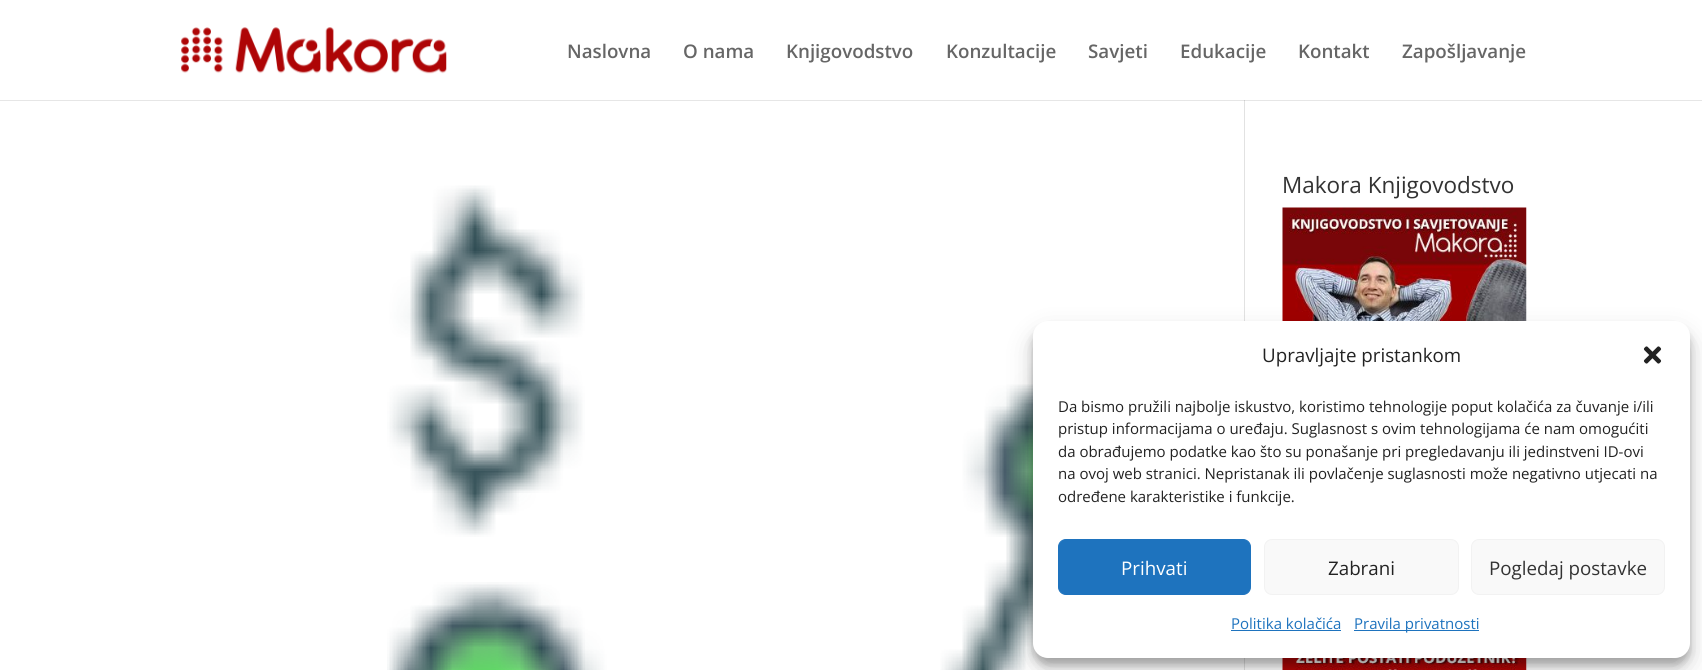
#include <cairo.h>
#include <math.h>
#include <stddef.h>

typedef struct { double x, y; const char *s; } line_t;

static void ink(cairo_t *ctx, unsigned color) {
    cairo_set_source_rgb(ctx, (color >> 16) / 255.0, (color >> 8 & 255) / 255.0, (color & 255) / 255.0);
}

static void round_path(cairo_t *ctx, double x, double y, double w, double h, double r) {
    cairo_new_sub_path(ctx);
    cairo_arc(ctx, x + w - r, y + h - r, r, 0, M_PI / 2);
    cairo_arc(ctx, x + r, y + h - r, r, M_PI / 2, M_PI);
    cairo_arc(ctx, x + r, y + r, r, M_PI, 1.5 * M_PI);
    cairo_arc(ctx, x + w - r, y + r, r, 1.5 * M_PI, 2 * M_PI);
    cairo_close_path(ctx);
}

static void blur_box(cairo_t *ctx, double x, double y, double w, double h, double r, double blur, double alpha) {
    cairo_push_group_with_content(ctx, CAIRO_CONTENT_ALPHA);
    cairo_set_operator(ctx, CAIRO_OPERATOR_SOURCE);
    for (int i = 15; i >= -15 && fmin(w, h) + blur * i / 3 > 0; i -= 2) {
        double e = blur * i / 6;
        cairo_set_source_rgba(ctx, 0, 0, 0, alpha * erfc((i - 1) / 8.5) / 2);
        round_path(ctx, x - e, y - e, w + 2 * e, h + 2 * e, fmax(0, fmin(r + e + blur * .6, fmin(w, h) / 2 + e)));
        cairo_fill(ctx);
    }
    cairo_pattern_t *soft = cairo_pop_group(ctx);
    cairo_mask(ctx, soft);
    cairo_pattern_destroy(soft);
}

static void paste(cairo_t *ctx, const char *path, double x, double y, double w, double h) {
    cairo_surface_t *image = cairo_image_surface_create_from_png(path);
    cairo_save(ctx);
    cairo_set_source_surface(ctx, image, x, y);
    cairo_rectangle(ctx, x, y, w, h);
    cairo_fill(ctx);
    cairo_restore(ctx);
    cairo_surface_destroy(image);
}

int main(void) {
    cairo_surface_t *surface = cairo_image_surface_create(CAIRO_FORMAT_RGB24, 1702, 670);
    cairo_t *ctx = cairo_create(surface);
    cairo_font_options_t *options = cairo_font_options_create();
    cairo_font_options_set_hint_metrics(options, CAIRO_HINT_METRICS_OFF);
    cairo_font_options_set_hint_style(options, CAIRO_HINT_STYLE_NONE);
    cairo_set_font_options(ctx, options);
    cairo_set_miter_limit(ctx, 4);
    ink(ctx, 0xFFFFFF);
    cairo_paint(ctx);
    ink(ctx, 0xE2E2E2);
    cairo_rectangle(ctx, 1244, 100, 1, 570);
    cairo_fill(ctx);
    cairo_set_source_rgba(ctx, 0, 0, 0, 0.1);
    cairo_new_path(ctx);
    cairo_move_to(ctx, 0, 100);
    cairo_line_to(ctx, 0, 101);
    cairo_line_to(ctx, 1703, 101);
    cairo_line_to(ctx, 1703, 1);
    cairo_line_to(ctx, 1702, 1);
    cairo_line_to(ctx, 1702, 100);
    cairo_close_path(ctx);
    cairo_fill(ctx);
    paste(ctx, "media/1.png", 181, 27, 266, 47);
    cairo_select_font_face(ctx, "Open Sans SemiBold", CAIRO_FONT_SLANT_NORMAL, CAIRO_FONT_WEIGHT_NORMAL);
    cairo_set_font_size(ctx, 18.75);
    ink(ctx, 0x666666);
    {
        static const line_t items[] = {
            {567, 58, "Naslovna"},
            {683, 58, "O nama"},
            {786, 58, "Knjigovodstvo"},
            {946, 58, "Konzultacije"},
            {1088, 58, "Savjeti"},
            {1180, 58, "Edukacije"},
            {1298, 58, "Kontakt"},
            {1402, 58, "Zapošljavanje"},
        };
        for (size_t i = 0; i < sizeof items / sizeof *items; i++) {
            cairo_move_to(ctx, items[i].x, items[i].y);
            cairo_show_text(ctx, items[i].s);
        }
    }
    paste(ctx, "media/2.png", 387, 185, 647, 485);
    cairo_select_font_face(ctx, "Open Sans", CAIRO_FONT_SLANT_NORMAL, CAIRO_FONT_WEIGHT_NORMAL);
    cairo_set_font_size(ctx, 22.5);
    ink(ctx, 0x333333);
    cairo_move_to(ctx, 1282, 193);
    cairo_show_text(ctx, "Makora Knjigovodstvo");
    paste(ctx, "media/3.png", 1282, 207, 245, 114);
    paste(ctx, "media/4.png", 1282, 658, 245, 12);
    ink(ctx, 0x000000);
    blur_box(ctx, 1033, 329, 657, 336, 15, 4, 0.23);
    blur_box(ctx, 1033, 334, 657, 336, 15, 12.5, 0.19);
    ink(ctx, 0xFFFFFF);
    round_path(ctx, 1033, 321, 657, 337, 15);
    cairo_fill(ctx);
    cairo_set_font_size(ctx, 18.75);
    ink(ctx, 0x222222);
    cairo_move_to(ctx, 1262, 362);
    cairo_show_text(ctx, "Upravljajte pristankom");
    paste(ctx, "media/5.png", 1643, 346, 19, 18);
    cairo_set_font_size(ctx, 15);
    {
        static const line_t items[] = {
            {1058, 412, "Da bismo pružili najbolje iskustvo, koristimo tehnologije poput kolačića za čuvanje i/ili"},
            {1058, 434, "pristup informacijama o uređaju. Suglasnost s ovim tehnologijama će nam omogućiti"},
            {1058, 457, "da obrađujemo podatke kao što su ponašanje pri pregledavanju ili jedinstveni ID-ovi"},
            {1058, 479, "na ovoj web stranici. Nepristanak ili povlačenje suglasnosti može negativno utjecati na"},
            {1058, 502, "određene karakteristike i funkcije."},
        };
        for (size_t i = 0; i < sizeof items / sizeof *items; i++) {
            cairo_move_to(ctx, items[i].x, items[i].y);
            cairo_show_text(ctx, items[i].s);
        }
    }
    ink(ctx, 0x1E73BE);
    round_path(ctx, 1058.5, 539.5, 192, 55, 7.5);
    cairo_fill_preserve(ctx);
    cairo_set_line_width(ctx, 1);
    cairo_stroke(ctx);
    cairo_set_font_size(ctx, 18.75);
    ink(ctx, 0xFFFFFF);
    cairo_move_to(ctx, 1121, 575);
    cairo_show_text(ctx, "Prihvati");
    ink(ctx, 0xF9F9F9);
    round_path(ctx, 1264.5, 539.5, 194, 55, 7.5);
    cairo_fill_preserve(ctx);
    ink(ctx, 0xF2F2F2);
    cairo_stroke(ctx);
    ink(ctx, 0x222222);
    cairo_move_to(ctx, 1328, 575);
    cairo_show_text(ctx, "Zabrani");
    ink(ctx, 0xF9F9F9);
    round_path(ctx, 1471.5, 539.5, 193, 55, 7.5);
    cairo_fill_preserve(ctx);
    ink(ctx, 0xF2F2F2);
    cairo_stroke(ctx);
    ink(ctx, 0x333333);
    cairo_move_to(ctx, 1489, 575);
    cairo_show_text(ctx, "Pogledaj postavke");
    cairo_set_font_size(ctx, 15);
    ink(ctx, 0x1E73BE);
    cairo_move_to(ctx, 1231, 629);
    cairo_show_text(ctx, "Politika kolačića");
    cairo_rectangle(ctx, 1231, 630, 110, 1);
    cairo_fill(ctx);
    cairo_rectangle(ctx, 1354, 630, 125, 1);
    cairo_fill(ctx);
    cairo_move_to(ctx, 1354, 629);
    cairo_show_text(ctx, "Pravila privatnosti");
    cairo_surface_write_to_png(surface, "image.png");
    cairo_font_options_destroy(options);
    cairo_destroy(ctx);
    cairo_surface_destroy(surface);
    return 0;
}
